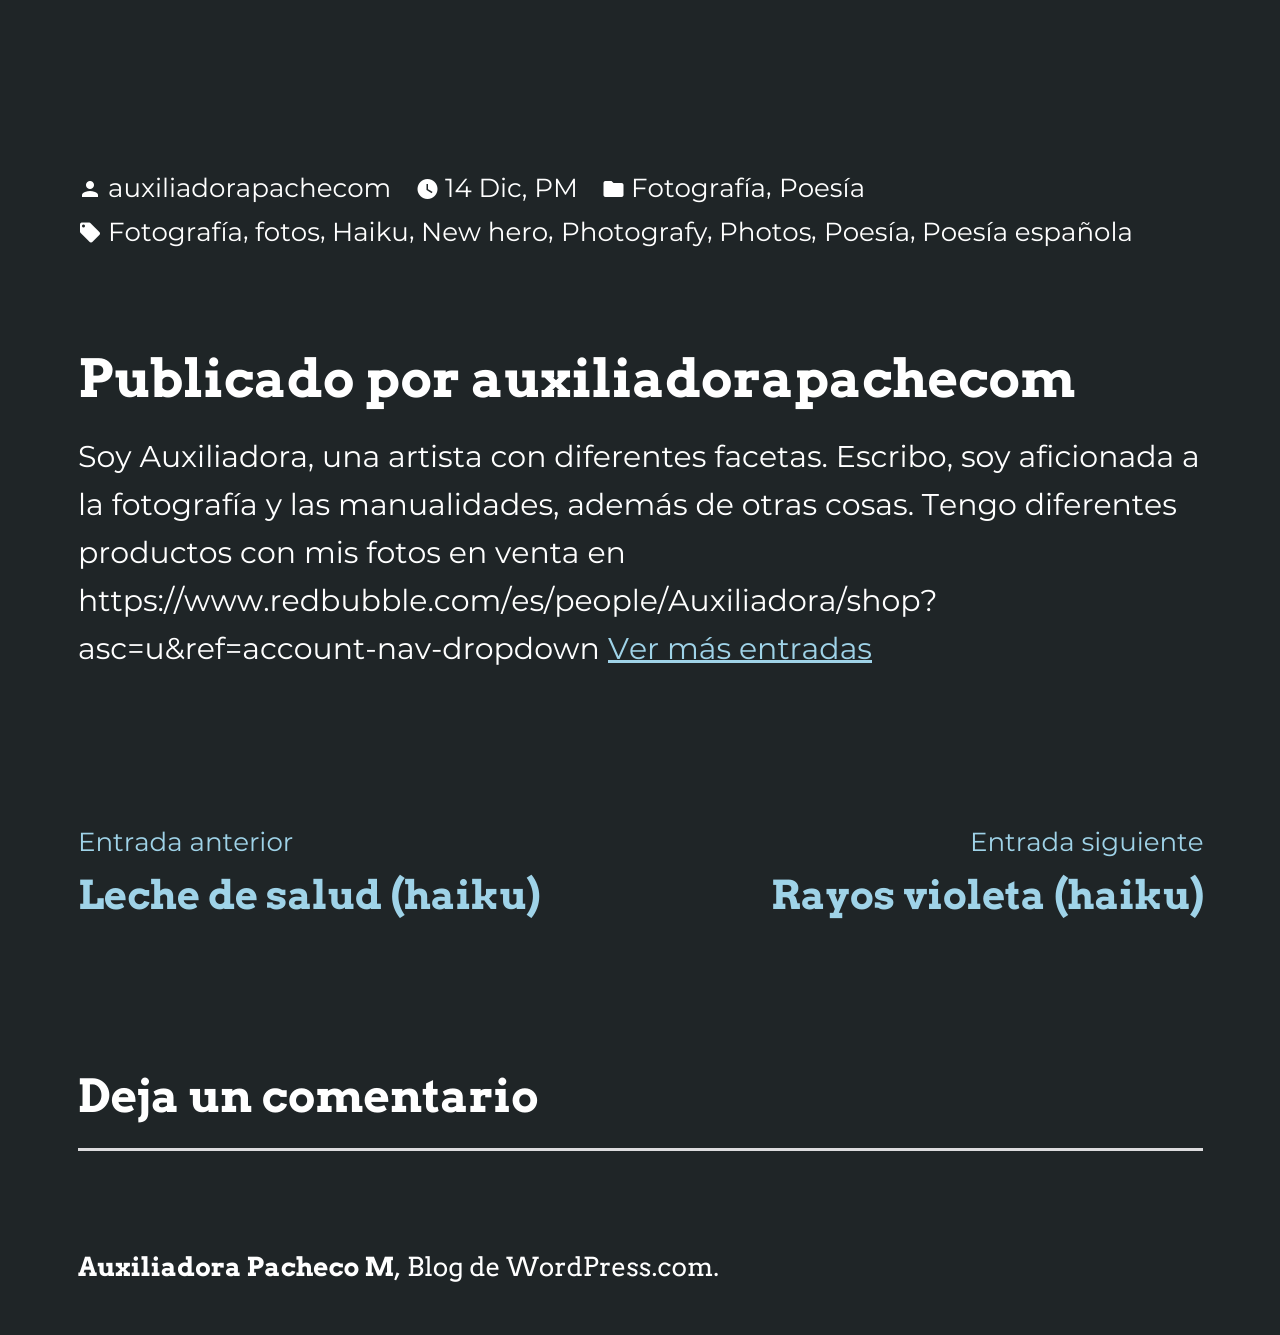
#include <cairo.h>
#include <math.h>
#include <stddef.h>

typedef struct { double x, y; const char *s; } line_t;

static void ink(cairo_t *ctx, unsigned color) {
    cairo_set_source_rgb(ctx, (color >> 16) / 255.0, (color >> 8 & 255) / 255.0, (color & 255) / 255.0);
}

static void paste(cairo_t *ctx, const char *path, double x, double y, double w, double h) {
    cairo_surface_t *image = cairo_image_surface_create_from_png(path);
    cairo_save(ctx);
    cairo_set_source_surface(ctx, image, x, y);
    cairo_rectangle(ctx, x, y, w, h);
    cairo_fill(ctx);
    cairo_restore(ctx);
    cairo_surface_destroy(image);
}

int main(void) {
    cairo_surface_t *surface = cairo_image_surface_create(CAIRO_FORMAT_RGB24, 1280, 1335);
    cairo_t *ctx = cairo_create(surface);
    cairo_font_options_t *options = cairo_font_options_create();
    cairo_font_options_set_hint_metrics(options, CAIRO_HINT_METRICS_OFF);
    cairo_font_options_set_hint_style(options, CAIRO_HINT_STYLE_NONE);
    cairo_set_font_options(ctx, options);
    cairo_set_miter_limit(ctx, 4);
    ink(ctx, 0x1F2527);
    cairo_paint(ctx);
    paste(ctx, "media/1.png", 82, 181, 16, 16);
    cairo_select_font_face(ctx, "Montserrat", CAIRO_FONT_SLANT_NORMAL, CAIRO_FONT_WEIGHT_NORMAL);
    cairo_set_font_size(ctx, 26.1);
    ink(ctx, 0xFFFFFF);
    cairo_move_to(ctx, 108, 197);
    cairo_show_text(ctx, "auxiliadorapachecom");
    paste(ctx, "media/2.png", 417, 179, 21, 20);
    cairo_move_to(ctx, 445, 197);
    cairo_show_text(ctx, "14 Dic, PM");
    paste(ctx, "media/3.png", 603, 181, 21, 16);
    {
        static const line_t items[] = {
            {631, 197, "Fotografía"},
            {766, 195, ","},
            {779, 197, "Poesía"},
        };
        for (size_t i = 0; i < sizeof items / sizeof *items; i++) {
            cairo_move_to(ctx, items[i].x, items[i].y);
            cairo_show_text(ctx, items[i].s);
        }
    }
    paste(ctx, "media/4.png", 80, 222, 20, 21);
    {
        static const line_t items[] = {
            {108, 241, "Fotografía"},
            {243, 239, ","},
            {255, 241, "fotos"},
            {320, 239, ","},
            {332, 241, "Haiku"},
            {409, 239, ","},
            {421, 241, "New hero"},
            {548, 239, ","},
            {561, 241, "Photografy"},
            {707, 239, ","},
            {719, 241, "Photos"},
            {811, 239, ","},
            {824, 241, "Poesía"},
            {910, 239, ","},
            {922, 241, "Poesía española"},
        };
        for (size_t i = 0; i < sizeof items / sizeof *items; i++) {
            cairo_move_to(ctx, items[i].x, items[i].y);
            cairo_show_text(ctx, items[i].s);
        }
    }
    cairo_select_font_face(ctx, "Arvo", CAIRO_FONT_SLANT_NORMAL, CAIRO_FONT_WEIGHT_BOLD);
    cairo_set_font_size(ctx, 52.5);
    cairo_move_to(ctx, 78, 397);
    cairo_show_text(ctx, "Publicado por auxiliadorapachecom");
    cairo_select_font_face(ctx, "Montserrat", CAIRO_FONT_SLANT_NORMAL, CAIRO_FONT_WEIGHT_NORMAL);
    cairo_set_font_size(ctx, 30);
    {
        static const line_t items[] = {
            {78, 467, "Soy Auxiliadora, una artista con diferentes facetas. Escribo, soy aficionada a"},
            {78, 515, "la fotografía y las manualidades, además de otras cosas. Tengo diferentes"},
            {78, 563, "productos con mis fotos en venta en"},
            {78, 611, "https://www.redbubble.com/es/people/Auxiliadora/shop?"},
            {78, 659, "asc=u&ref=account-nav-dropdown"},
        };
        for (size_t i = 0; i < sizeof items / sizeof *items; i++) {
            cairo_move_to(ctx, items[i].x, items[i].y);
            cairo_show_text(ctx, items[i].s);
        }
    }
    ink(ctx, 0x9FD3E8);
    cairo_move_to(ctx, 608, 659);
    cairo_show_text(ctx, "Ver más entradas");
    cairo_rectangle(ctx, 608, 660, 264, 3);
    cairo_fill(ctx);
    cairo_set_font_size(ctx, 26.1);
    cairo_move_to(ctx, 78, 851);
    cairo_show_text(ctx, "Entrada anterior");
    cairo_select_font_face(ctx, "Arvo", CAIRO_FONT_SLANT_NORMAL, CAIRO_FONT_WEIGHT_BOLD);
    cairo_set_font_size(ctx, 39.75);
    cairo_move_to(ctx, 78, 909);
    cairo_show_text(ctx, "Leche de salud (haiku)");
    cairo_select_font_face(ctx, "Montserrat", CAIRO_FONT_SLANT_NORMAL, CAIRO_FONT_WEIGHT_NORMAL);
    cairo_set_font_size(ctx, 26.1);
    cairo_move_to(ctx, 970, 851);
    cairo_show_text(ctx, "Entrada siguiente");
    cairo_select_font_face(ctx, "Arvo", CAIRO_FONT_SLANT_NORMAL, CAIRO_FONT_WEIGHT_BOLD);
    cairo_set_font_size(ctx, 39.75);
    cairo_move_to(ctx, 771, 909);
    cairo_show_text(ctx, "Rayos violeta (haiku)");
    cairo_set_font_size(ctx, 45.6);
    ink(ctx, 0xFFFFFF);
    cairo_move_to(ctx, 78, 1112);
    cairo_show_text(ctx, "Deja un comentario");
    ink(ctx, 0xDCDCDE);
    cairo_rectangle(ctx, 78, 1148, 1125, 3);
    cairo_fill(ctx);
    cairo_set_font_size(ctx, 26.1);
    ink(ctx, 0xFFFFFF);
    cairo_move_to(ctx, 78, 1276);
    cairo_show_text(ctx, "Auxiliadora Pacheco M");
    cairo_select_font_face(ctx, "Arvo", CAIRO_FONT_SLANT_NORMAL, CAIRO_FONT_WEIGHT_NORMAL);
    cairo_move_to(ctx, 394, 1276);
    cairo_show_text(ctx, ", Blog de WordPress.com.");
    cairo_surface_write_to_png(surface, "image.png");
    cairo_font_options_destroy(options);
    cairo_destroy(ctx);
    cairo_surface_destroy(surface);
    return 0;
}
